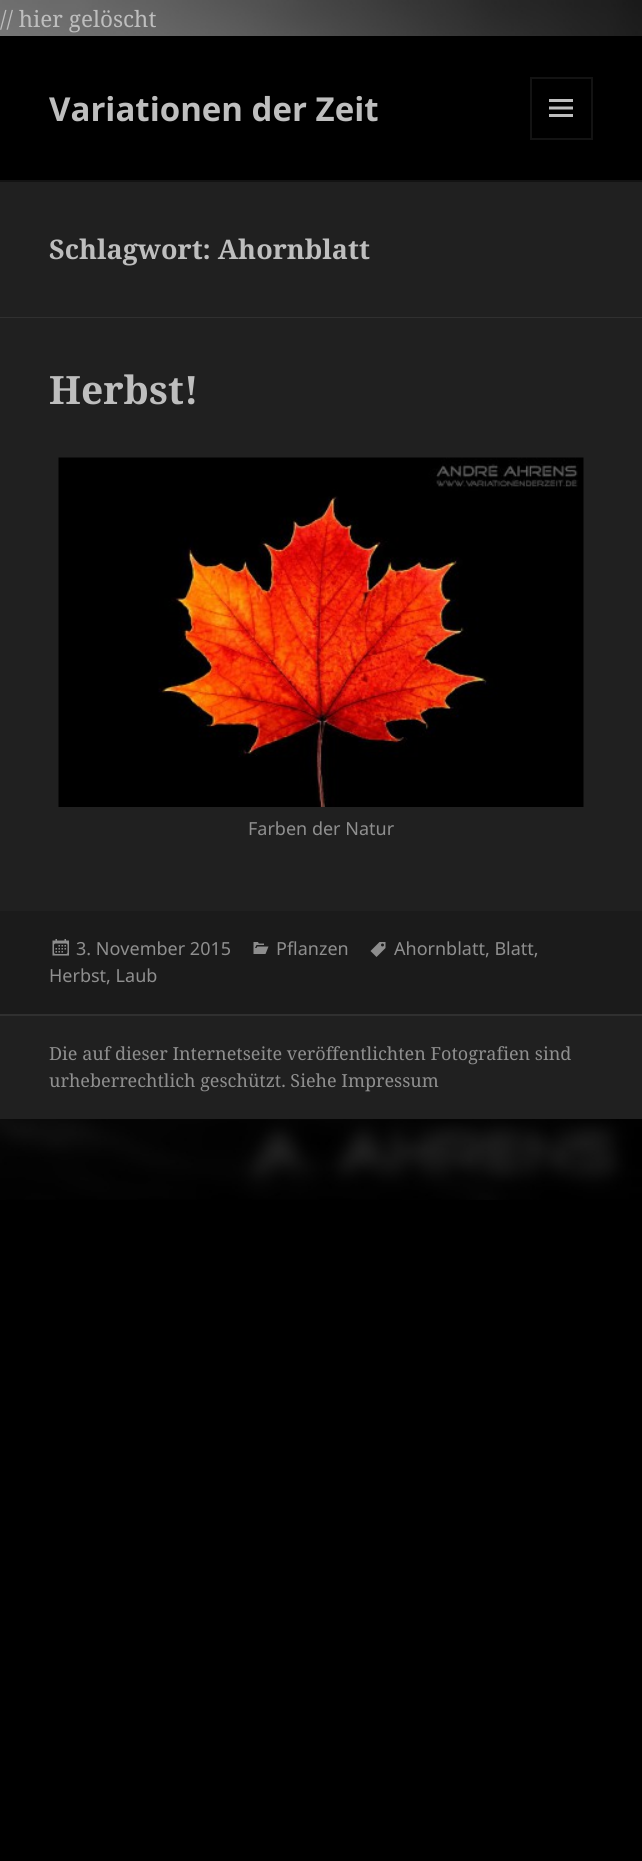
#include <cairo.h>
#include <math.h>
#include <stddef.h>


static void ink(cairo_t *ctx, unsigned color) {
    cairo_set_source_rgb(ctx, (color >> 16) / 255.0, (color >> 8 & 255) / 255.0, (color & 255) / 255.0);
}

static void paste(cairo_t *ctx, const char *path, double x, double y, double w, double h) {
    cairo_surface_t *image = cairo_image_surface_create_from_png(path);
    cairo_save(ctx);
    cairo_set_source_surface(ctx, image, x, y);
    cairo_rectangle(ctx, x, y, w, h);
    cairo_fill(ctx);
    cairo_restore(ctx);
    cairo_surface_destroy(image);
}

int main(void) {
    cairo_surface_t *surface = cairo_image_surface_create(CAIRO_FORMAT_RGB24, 642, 1861);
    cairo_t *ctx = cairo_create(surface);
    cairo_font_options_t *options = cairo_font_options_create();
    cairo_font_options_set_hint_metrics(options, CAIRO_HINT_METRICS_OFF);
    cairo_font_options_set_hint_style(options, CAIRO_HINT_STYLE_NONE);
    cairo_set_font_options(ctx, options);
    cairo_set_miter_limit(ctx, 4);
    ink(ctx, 0x000000);
    cairo_paint(ctx);
    paste(ctx, "media/1.png", 0, 0, 642, 1200);
    cairo_select_font_face(ctx, "Noto Serif", CAIRO_FONT_SLANT_NORMAL, CAIRO_FONT_WEIGHT_NORMAL);
    cairo_set_font_size(ctx, 22.5);
    ink(ctx, 0xBEBEBE);
    cairo_move_to(ctx, 0, 27);
    cairo_show_text(ctx, "// hier gelöscht");
    ink(ctx, 0x000000);
    cairo_rectangle(ctx, 0, 36, 642, 144);
    cairo_fill(ctx);
    ink(ctx, 0x131313);
    cairo_rectangle(ctx, 0, 180, 642, 2);
    cairo_fill(ctx);
    cairo_select_font_face(ctx, "Noto Sans", CAIRO_FONT_SLANT_NORMAL, CAIRO_FONT_WEIGHT_BOLD);
    cairo_set_font_size(ctx, 33);
    ink(ctx, 0xBEBEBE);
    cairo_move_to(ctx, 49, 121);
    cairo_show_text(ctx, "Variationen der Zeit");
    cairo_rectangle(ctx, 531, 78, 61, 61);
    ink(ctx, 0x131313);
    cairo_stroke(ctx);
    paste(ctx, "media/2.png", 549, 99, 24, 18);
    ink(ctx, 0x202020);
    cairo_rectangle(ctx, 0, 182, 642, 729);
    cairo_fill(ctx);
    cairo_set_source_rgba(ctx, 0.745, 0.745, 0.745, 0.1);
    cairo_rectangle(ctx, 0, 317, 642, 1);
    cairo_fill(ctx);
    cairo_select_font_face(ctx, "Noto Serif", CAIRO_FONT_SLANT_NORMAL, CAIRO_FONT_WEIGHT_BOLD);
    cairo_set_font_size(ctx, 27);
    ink(ctx, 0xBEBEBE);
    cairo_move_to(ctx, 49, 259);
    cairo_show_text(ctx, "Schlagwort: Ahornblatt");
    cairo_set_font_size(ctx, 39);
    cairo_move_to(ctx, 49, 404);
    cairo_show_text(ctx, "Herbst!");
    paste(ctx, "media/3.png", 58, 457, 526, 350);
    cairo_select_font_face(ctx, "Noto Sans", CAIRO_FONT_SLANT_NORMAL, CAIRO_FONT_WEIGHT_NORMAL);
    cairo_set_font_size(ctx, 18);
    ink(ctx, 0x8F8F8F);
    cairo_move_to(ctx, 248, 835);
    cairo_show_text(ctx, "Farben der Natur");
    ink(ctx, 0x1B1B1B);
    cairo_rectangle(ctx, 0, 911, 642, 103);
    cairo_fill(ctx);
    paste(ctx, "media/4.png", 370, 942, 16, 15);
    ink(ctx, 0x8F8F8F);
    cairo_move_to(ctx, 394, 955);
    cairo_show_text(ctx, "Ahornblatt, Blatt,");
    cairo_move_to(ctx, 49, 982);
    cairo_show_text(ctx, "Herbst, Laub");
    paste(ctx, "media/5.png", 52, 939, 17, 17);
    cairo_move_to(ctx, 76, 955);
    cairo_show_text(ctx, "3. November 2015");
    paste(ctx, "media/6.png", 253, 942, 16, 12);
    cairo_move_to(ctx, 276, 955);
    cairo_show_text(ctx, "Pflanzen");
    ink(ctx, 0x202020);
    cairo_rectangle(ctx, 0, 1016, 642, 103);
    cairo_fill(ctx);
    ink(ctx, 0x303030);
    cairo_rectangle(ctx, 0, 1014, 642, 2);
    cairo_fill(ctx);
    cairo_select_font_face(ctx, "Noto Serif", CAIRO_FONT_SLANT_NORMAL, CAIRO_FONT_WEIGHT_NORMAL);
    ink(ctx, 0x8F8F8F);
    cairo_move_to(ctx, 49, 1060);
    cairo_show_text(ctx, "Die auf dieser Internetseite veröffentlichten Fotografien sind");
    cairo_move_to(ctx, 49, 1087);
    cairo_show_text(ctx, "urheberrechtlich geschützt. Siehe Impressum");
    cairo_surface_write_to_png(surface, "image.png");
    cairo_font_options_destroy(options);
    cairo_destroy(ctx);
    cairo_surface_destroy(surface);
    return 0;
}
